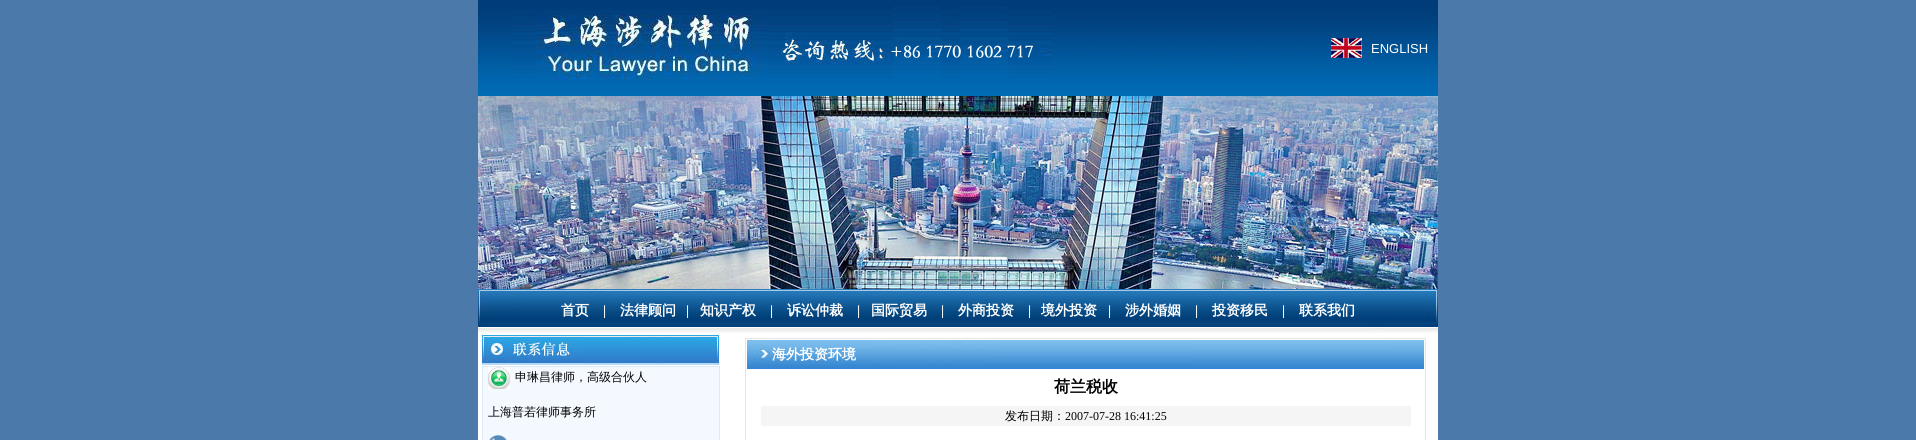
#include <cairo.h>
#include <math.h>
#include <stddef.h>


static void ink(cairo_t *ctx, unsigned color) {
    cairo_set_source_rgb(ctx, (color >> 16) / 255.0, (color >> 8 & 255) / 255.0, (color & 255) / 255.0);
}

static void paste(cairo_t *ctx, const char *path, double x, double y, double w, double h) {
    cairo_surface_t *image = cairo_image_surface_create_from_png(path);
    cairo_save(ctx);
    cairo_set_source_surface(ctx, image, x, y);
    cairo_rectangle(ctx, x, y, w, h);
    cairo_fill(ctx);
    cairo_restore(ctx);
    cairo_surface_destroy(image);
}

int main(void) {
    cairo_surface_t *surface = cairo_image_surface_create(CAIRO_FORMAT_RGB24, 1916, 440);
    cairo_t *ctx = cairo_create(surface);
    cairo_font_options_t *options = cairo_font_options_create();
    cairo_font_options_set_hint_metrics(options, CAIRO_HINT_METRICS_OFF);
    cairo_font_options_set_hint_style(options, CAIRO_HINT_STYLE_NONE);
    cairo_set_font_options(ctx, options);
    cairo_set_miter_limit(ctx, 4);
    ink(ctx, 0x4B7AAA);
    cairo_paint(ctx);
    paste(ctx, "media/1.png", 478, 0, 960, 96);
    paste(ctx, "media/2.png", 513, 6, 539, 74);
    paste(ctx, "media/3.png", 1331, 38, 31, 20);
    cairo_select_font_face(ctx, "Liberation Sans", CAIRO_FONT_SLANT_NORMAL, CAIRO_FONT_WEIGHT_NORMAL);
    cairo_set_font_size(ctx, 13);
    ink(ctx, 0xFFFFFF);
    cairo_move_to(ctx, 1371, 53);
    cairo_show_text(ctx, "ENGLISH");
    paste(ctx, "media/4.png", 478, 96, 960, 193);
    paste(ctx, "media/5.png", 478, 289, 960, 44);
    cairo_select_font_face(ctx, "WenQuanYi Zen Hei", CAIRO_FONT_SLANT_NORMAL, CAIRO_FONT_WEIGHT_BOLD);
    cairo_set_font_size(ctx, 14);
    cairo_move_to(ctx, 561, 315);
    cairo_show_text(ctx, "首页");
    cairo_select_font_face(ctx, "Liberation Serif", CAIRO_FONT_SLANT_NORMAL, CAIRO_FONT_WEIGHT_BOLD);
    cairo_move_to(ctx, 603, 315);
    cairo_show_text(ctx, "|");
    cairo_select_font_face(ctx, "WenQuanYi Zen Hei", CAIRO_FONT_SLANT_NORMAL, CAIRO_FONT_WEIGHT_BOLD);
    cairo_move_to(ctx, 620, 315);
    cairo_show_text(ctx, "法律顾问");
    cairo_select_font_face(ctx, "Liberation Serif", CAIRO_FONT_SLANT_NORMAL, CAIRO_FONT_WEIGHT_BOLD);
    cairo_move_to(ctx, 686, 315);
    cairo_show_text(ctx, "|");
    cairo_select_font_face(ctx, "WenQuanYi Zen Hei", CAIRO_FONT_SLANT_NORMAL, CAIRO_FONT_WEIGHT_BOLD);
    cairo_move_to(ctx, 700, 315);
    cairo_show_text(ctx, "知识产权");
    cairo_select_font_face(ctx, "Liberation Serif", CAIRO_FONT_SLANT_NORMAL, CAIRO_FONT_WEIGHT_BOLD);
    cairo_move_to(ctx, 770, 315);
    cairo_show_text(ctx, "|");
    cairo_select_font_face(ctx, "WenQuanYi Zen Hei", CAIRO_FONT_SLANT_NORMAL, CAIRO_FONT_WEIGHT_BOLD);
    cairo_move_to(ctx, 787, 315);
    cairo_show_text(ctx, "诉讼仲裁");
    cairo_select_font_face(ctx, "Liberation Serif", CAIRO_FONT_SLANT_NORMAL, CAIRO_FONT_WEIGHT_BOLD);
    cairo_move_to(ctx, 857, 315);
    cairo_show_text(ctx, "|");
    cairo_select_font_face(ctx, "WenQuanYi Zen Hei", CAIRO_FONT_SLANT_NORMAL, CAIRO_FONT_WEIGHT_BOLD);
    cairo_move_to(ctx, 871, 315);
    cairo_show_text(ctx, "国际贸易");
    cairo_select_font_face(ctx, "Liberation Serif", CAIRO_FONT_SLANT_NORMAL, CAIRO_FONT_WEIGHT_BOLD);
    cairo_move_to(ctx, 941, 315);
    cairo_show_text(ctx, "|");
    cairo_select_font_face(ctx, "WenQuanYi Zen Hei", CAIRO_FONT_SLANT_NORMAL, CAIRO_FONT_WEIGHT_BOLD);
    cairo_move_to(ctx, 958, 315);
    cairo_show_text(ctx, "外商投资");
    cairo_select_font_face(ctx, "Liberation Serif", CAIRO_FONT_SLANT_NORMAL, CAIRO_FONT_WEIGHT_BOLD);
    cairo_move_to(ctx, 1028, 315);
    cairo_show_text(ctx, "|");
    cairo_select_font_face(ctx, "WenQuanYi Zen Hei", CAIRO_FONT_SLANT_NORMAL, CAIRO_FONT_WEIGHT_BOLD);
    cairo_move_to(ctx, 1041, 315);
    cairo_show_text(ctx, "境外投资");
    cairo_select_font_face(ctx, "Liberation Serif", CAIRO_FONT_SLANT_NORMAL, CAIRO_FONT_WEIGHT_BOLD);
    cairo_move_to(ctx, 1108, 315);
    cairo_show_text(ctx, "|");
    cairo_select_font_face(ctx, "WenQuanYi Zen Hei", CAIRO_FONT_SLANT_NORMAL, CAIRO_FONT_WEIGHT_BOLD);
    cairo_move_to(ctx, 1125, 315);
    cairo_show_text(ctx, "涉外婚姻");
    cairo_select_font_face(ctx, "Liberation Serif", CAIRO_FONT_SLANT_NORMAL, CAIRO_FONT_WEIGHT_BOLD);
    cairo_move_to(ctx, 1195, 315);
    cairo_show_text(ctx, "|");
    cairo_select_font_face(ctx, "WenQuanYi Zen Hei", CAIRO_FONT_SLANT_NORMAL, CAIRO_FONT_WEIGHT_BOLD);
    cairo_move_to(ctx, 1212, 315);
    cairo_show_text(ctx, "投资移民");
    cairo_select_font_face(ctx, "Liberation Serif", CAIRO_FONT_SLANT_NORMAL, CAIRO_FONT_WEIGHT_BOLD);
    cairo_move_to(ctx, 1282, 315);
    cairo_show_text(ctx, "|");
    cairo_select_font_face(ctx, "WenQuanYi Zen Hei", CAIRO_FONT_SLANT_NORMAL, CAIRO_FONT_WEIGHT_BOLD);
    cairo_move_to(ctx, 1299, 315);
    cairo_show_text(ctx, "联系我们");
    cairo_rectangle(ctx, 478, 333, 960, 107);
    cairo_fill(ctx);
    paste(ctx, "media/6.png", 481, 333, 239, 32);
    ink(ctx, 0xDCE9F8);
    cairo_rectangle(ctx, 482, 366, 238, 74);
    cairo_fill(ctx);
    ink(ctx, 0xF4F9FF);
    cairo_rectangle(ctx, 483, 367, 236, 73);
    cairo_fill(ctx);
    paste(ctx, "media/7.png", 488, 367, 22, 22);
    cairo_select_font_face(ctx, "WenQuanYi Zen Hei Medium", CAIRO_FONT_SLANT_NORMAL, CAIRO_FONT_WEIGHT_NORMAL);
    cairo_set_font_size(ctx, 12);
    ink(ctx, 0x000000);
    cairo_move_to(ctx, 515, 381);
    cairo_show_text(ctx, "申琳昌律师，高级合伙人");
    cairo_move_to(ctx, 488, 416);
    cairo_show_text(ctx, "上海普若律师事务所");
    paste(ctx, "media/8.png", 489, 435, 18, 5);
    ink(ctx, 0xE5E5E5);
    cairo_rectangle(ctx, 745, 338, 681, 102);
    cairo_fill(ctx);
    ink(ctx, 0xFFFFFF);
    cairo_rectangle(ctx, 746, 339, 679, 101);
    cairo_fill(ctx);
    paste(ctx, "media/9.png", 747, 340, 677, 30);
    cairo_select_font_face(ctx, "WenQuanYi Zen Hei", CAIRO_FONT_SLANT_NORMAL, CAIRO_FONT_WEIGHT_BOLD);
    cairo_set_font_size(ctx, 14);
    cairo_move_to(ctx, 772, 359);
    cairo_show_text(ctx, "海外投资环境");
    cairo_set_font_size(ctx, 16);
    ink(ctx, 0x000000);
    cairo_move_to(ctx, 1054, 392);
    cairo_show_text(ctx, "荷兰税收");
    ink(ctx, 0xF5F5F5);
    cairo_rectangle(ctx, 761, 406, 650, 20);
    cairo_fill(ctx);
    cairo_select_font_face(ctx, "WenQuanYi Zen Hei Medium", CAIRO_FONT_SLANT_NORMAL, CAIRO_FONT_WEIGHT_NORMAL);
    cairo_set_font_size(ctx, 12);
    ink(ctx, 0x000000);
    cairo_move_to(ctx, 1005, 420);
    cairo_show_text(ctx, "发布日期：");
    cairo_select_font_face(ctx, "Liberation Serif", CAIRO_FONT_SLANT_NORMAL, CAIRO_FONT_WEIGHT_NORMAL);
    cairo_move_to(ctx, 1065, 420);
    cairo_show_text(ctx, "2007-07-28 16:41:25");
    cairo_surface_write_to_png(surface, "image.png");
    cairo_font_options_destroy(options);
    cairo_destroy(ctx);
    cairo_surface_destroy(surface);
    return 0;
}
